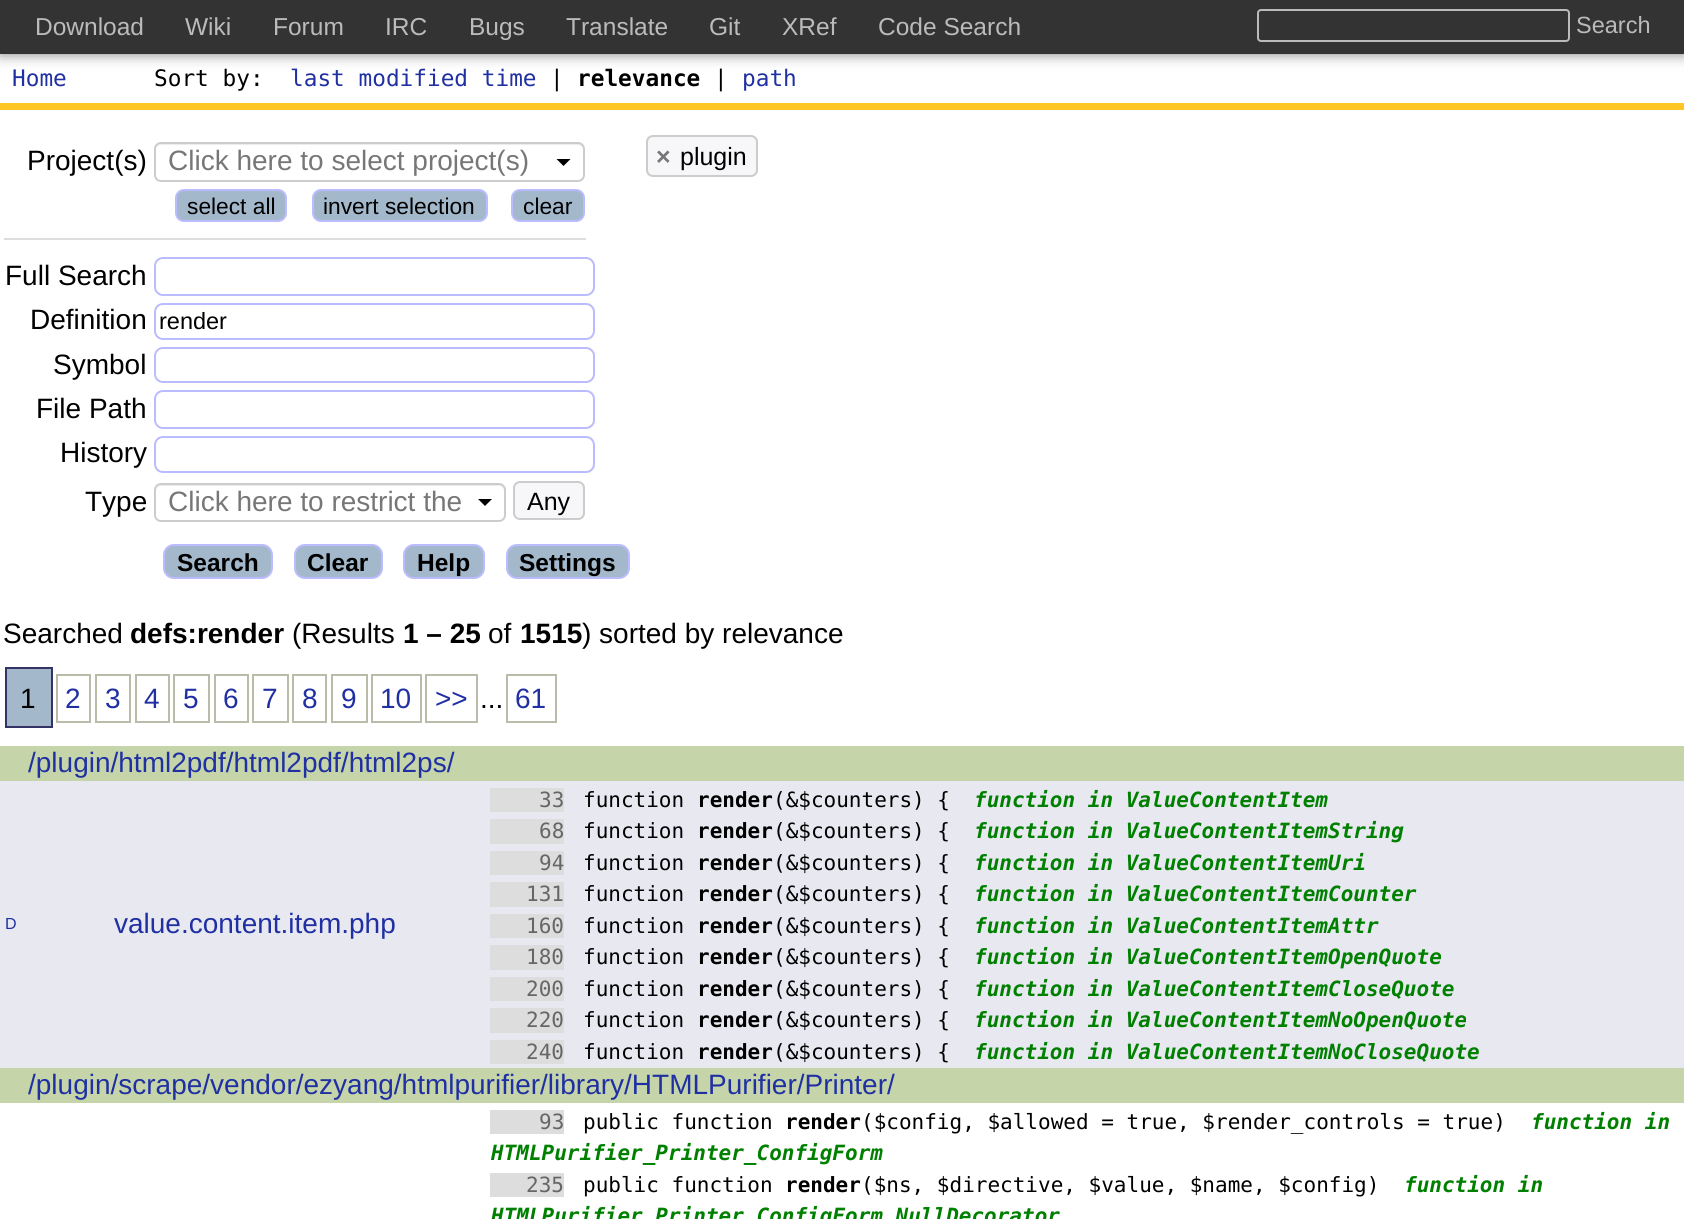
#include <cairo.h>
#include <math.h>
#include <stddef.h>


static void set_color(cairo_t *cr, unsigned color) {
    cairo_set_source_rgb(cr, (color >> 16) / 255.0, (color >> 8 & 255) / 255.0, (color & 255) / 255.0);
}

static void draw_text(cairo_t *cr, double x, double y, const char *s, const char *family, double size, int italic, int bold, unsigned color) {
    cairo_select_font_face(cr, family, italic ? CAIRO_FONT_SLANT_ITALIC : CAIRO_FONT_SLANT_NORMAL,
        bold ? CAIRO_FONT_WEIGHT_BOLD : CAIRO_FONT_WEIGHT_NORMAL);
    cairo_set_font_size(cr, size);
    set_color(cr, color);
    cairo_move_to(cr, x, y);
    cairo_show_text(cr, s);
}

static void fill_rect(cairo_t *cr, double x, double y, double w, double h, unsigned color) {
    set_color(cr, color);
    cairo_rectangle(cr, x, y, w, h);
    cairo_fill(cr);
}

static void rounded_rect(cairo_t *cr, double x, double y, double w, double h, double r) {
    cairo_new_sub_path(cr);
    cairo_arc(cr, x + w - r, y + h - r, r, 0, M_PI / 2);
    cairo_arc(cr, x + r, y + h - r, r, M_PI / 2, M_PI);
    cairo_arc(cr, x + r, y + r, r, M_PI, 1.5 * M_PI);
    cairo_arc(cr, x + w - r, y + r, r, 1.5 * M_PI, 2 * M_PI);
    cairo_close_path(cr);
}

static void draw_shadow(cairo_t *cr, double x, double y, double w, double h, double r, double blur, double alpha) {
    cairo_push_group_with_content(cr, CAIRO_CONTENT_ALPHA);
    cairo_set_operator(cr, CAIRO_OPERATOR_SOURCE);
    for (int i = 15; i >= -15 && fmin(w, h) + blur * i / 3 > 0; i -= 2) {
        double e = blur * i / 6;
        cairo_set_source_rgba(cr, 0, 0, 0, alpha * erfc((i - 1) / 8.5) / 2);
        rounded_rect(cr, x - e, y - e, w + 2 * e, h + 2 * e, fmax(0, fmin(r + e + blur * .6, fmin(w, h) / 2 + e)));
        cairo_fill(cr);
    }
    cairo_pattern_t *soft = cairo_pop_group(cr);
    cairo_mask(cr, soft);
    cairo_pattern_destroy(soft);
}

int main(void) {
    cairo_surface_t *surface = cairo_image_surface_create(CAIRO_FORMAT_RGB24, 1684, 1219);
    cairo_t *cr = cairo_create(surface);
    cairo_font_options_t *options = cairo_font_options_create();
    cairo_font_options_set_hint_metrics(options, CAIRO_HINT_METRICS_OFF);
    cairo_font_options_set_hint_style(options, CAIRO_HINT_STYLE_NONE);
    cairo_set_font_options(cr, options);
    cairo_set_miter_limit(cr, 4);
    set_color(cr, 0xFFFFFF);
    cairo_paint(cr);
    set_color(cr, 0x000000);
    draw_shadow(cr, 0, 0, 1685, 54, 0, 7, 0.5);
    fill_rect(cr, 0, 0, 1684, 54, 0x333333);
    draw_text(cr, 35, 35, "Download", "Liberation Sans", 24.5, 0, 0, 0xBBBBBB);
    draw_text(cr, 185, 35, "Wiki", "Liberation Sans", 24.5, 0, 0, 0xBBBBBB);
    draw_text(cr, 273, 35, "Forum", "Liberation Sans", 24.5, 0, 0, 0xBBBBBB);
    draw_text(cr, 385, 35, "IRC", "Liberation Sans", 24.5, 0, 0, 0xBBBBBB);
    draw_text(cr, 469, 35, "Bugs", "Liberation Sans", 24.5, 0, 0, 0xBBBBBB);
    draw_text(cr, 566, 35, "Translate", "Liberation Sans", 24.5, 0, 0, 0xBBBBBB);
    draw_text(cr, 709, 35, "Git", "Liberation Sans", 24.5, 0, 0, 0xBBBBBB);
    draw_text(cr, 782, 35, "XRef", "Liberation Sans", 24.5, 0, 0, 0xBBBBBB);
    draw_text(cr, 878, 35, "Code Search", "Liberation Sans", 24.5, 0, 0, 0xBBBBBB);
    rounded_rect(cr, 1258, 10, 311, 31, 3);
    cairo_stroke(cr);
    draw_text(cr, 1576, 33, "Search", "Liberation Sans", 23.5, 0, 0, 0xBBBBBB);
    draw_text(cr, 12, 86, "Home", "DejaVu Sans Mono", 22.75, 0, 0, 0x2030A2);
    draw_text(cr, 154, 86, "Sort by:", "DejaVu Sans Mono", 22.75, 0, 0, 0x000000);
    draw_text(cr, 290, 86, "last modified time", "DejaVu Sans Mono", 22.75, 0, 0, 0x2030A2);
    draw_text(cr, 550, 86, "|", "DejaVu Sans Mono", 22.75, 0, 0, 0x000000);
    draw_text(cr, 577, 86, "relevance", "DejaVu Sans Mono", 22.75, 0, 1, 0x000000);
    draw_text(cr, 714, 86, "|", "DejaVu Sans Mono", 22.75, 0, 0, 0x000000);
    draw_text(cr, 742, 86, "path", "DejaVu Sans Mono", 22.75, 0, 0, 0x2030A2);
    fill_rect(cr, 0, 103, 1684, 7, 0xFFC726);
    draw_text(cr, 27, 170, "Project(s)", "Liberation Sans", 28, 0, 0, 0x000000);
    set_color(cr, 0xECECEC);
    cairo_new_path(cr);
    cairo_move_to(cr, 161, 145);
    cairo_line_to(cr, 578, 145);
    cairo_curve_to(cr, 580, 145, 583, 148, 583, 150);
    cairo_curve_to(cr, 583, 147, 581, 144, 578, 144);
    cairo_line_to(cr, 161, 144);
    cairo_curve_to(cr, 158, 144, 156, 147, 156, 150);
    cairo_curve_to(cr, 156, 148, 158, 145, 161, 145);
    cairo_close_path(cr);
    cairo_fill(cr);
    rounded_rect(cr, 155, 143, 429, 38, 6);
    set_color(cr, 0xCCCCCC);
    cairo_stroke(cr);
    draw_text(cr, 168, 170, "Click here to select project(s)", "Liberation Sans", 28, 0, 0, 0x777777);
    set_color(cr, 0x000000);
    cairo_new_path(cr);
    cairo_move_to(cr, 556.5, 159);
    cairo_line_to(cr, 570.5, 159);
    cairo_line_to(cr, 563.5, 166);
    cairo_close_path(cr);
    cairo_fill(cr);
    fill_rect(cr, 4, 238, 582, 2, 0xDDDDDD);
    set_color(cr, 0xA3B8CB);
    rounded_rect(cr, 176, 190, 110, 31, 8);
    cairo_fill_preserve(cr);
    set_color(cr, 0xBBBBFF);
    cairo_stroke(cr);
    draw_text(cr, 187, 214, "select all", "Liberation Sans", 22.75, 0, 0, 0x000000);
    set_color(cr, 0xA3B8CB);
    rounded_rect(cr, 313, 190, 174, 31, 8);
    cairo_fill_preserve(cr);
    set_color(cr, 0xBBBBFF);
    cairo_stroke(cr);
    draw_text(cr, 323, 214, "invert selection", "Liberation Sans", 22.75, 0, 0, 0x000000);
    set_color(cr, 0xA3B8CB);
    rounded_rect(cr, 512, 190, 72, 31, 8);
    cairo_fill_preserve(cr);
    set_color(cr, 0xBBBBFF);
    cairo_stroke(cr);
    draw_text(cr, 523, 214, "clear", "Liberation Sans", 22.75, 0, 0, 0x000000);
    draw_text(cr, 5, 285, "Full Search", "Liberation Sans", 28, 0, 0, 0x000000);
    rounded_rect(cr, 155, 258, 439, 37, 8);
    set_color(cr, 0xBBBBFF);
    cairo_stroke(cr);
    draw_text(cr, 30, 329, "Definition", "Liberation Sans", 28, 0, 0, 0x000000);
    rounded_rect(cr, 155, 304, 439, 35, 8);
    set_color(cr, 0xBBBBFF);
    cairo_stroke(cr);
    draw_text(cr, 159, 329, "render", "Liberation Sans", 23.5, 0, 0, 0x000000);
    draw_text(cr, 53, 374, "Symbol", "Liberation Sans", 28, 0, 0, 0x000000);
    rounded_rect(cr, 155, 348, 439, 34, 8);
    set_color(cr, 0xBBBBFF);
    cairo_stroke(cr);
    draw_text(cr, 36, 418, "File Path", "Liberation Sans", 28, 0, 0, 0x000000);
    rounded_rect(cr, 155, 391, 439, 37, 8);
    set_color(cr, 0xBBBBFF);
    cairo_stroke(cr);
    draw_text(cr, 60, 462, "History", "Liberation Sans", 28, 0, 0, 0x000000);
    rounded_rect(cr, 155, 437, 439, 35, 8);
    set_color(cr, 0xBBBBFF);
    cairo_stroke(cr);
    draw_text(cr, 85, 511, "Type", "Liberation Sans", 28, 0, 0, 0x000000);
    set_color(cr, 0xECECEC);
    cairo_new_path(cr);
    cairo_move_to(cr, 161, 486);
    cairo_line_to(cr, 499, 486);
    cairo_curve_to(cr, 502, 486, 504, 489, 504, 492);
    cairo_curve_to(cr, 504, 489, 503, 485, 499, 485);
    cairo_line_to(cr, 161, 485);
    cairo_curve_to(cr, 157, 485, 156, 489, 156, 492);
    cairo_curve_to(cr, 156, 489, 158, 486, 161, 486);
    cairo_close_path(cr);
    cairo_fill(cr);
    rounded_rect(cr, 155, 484, 350, 37, 6);
    set_color(cr, 0xCCCCCC);
    cairo_stroke(cr);
    draw_text(cr, 168, 511, "Click here to restrict the", "Liberation Sans", 28, 0, 0, 0x777777);
    set_color(cr, 0x000000);
    cairo_new_path(cr);
    cairo_move_to(cr, 478, 499);
    cairo_line_to(cr, 492, 499);
    cairo_line_to(cr, 485, 506);
    cairo_close_path(cr);
    cairo_fill(cr);
    set_color(cr, 0xF7F7F9);
    rounded_rect(cr, 514, 482, 70, 37, 6);
    cairo_fill_preserve(cr);
    set_color(cr, 0xCCCCCC);
    cairo_stroke(cr);
    draw_text(cr, 527, 510, "Any", "Liberation Sans", 25, 0, 0, 0x000000);
    set_color(cr, 0xA3B8CB);
    rounded_rect(cr, 164, 545, 108, 33, 10);
    cairo_fill_preserve(cr);
    set_color(cr, 0xBBBBFF);
    cairo_stroke(cr);
    draw_text(cr, 177, 571, "Search", "Liberation Sans", 24.5, 0, 1, 0x000000);
    set_color(cr, 0xA3B8CB);
    rounded_rect(cr, 295, 545, 87, 33, 10);
    cairo_fill_preserve(cr);
    set_color(cr, 0xBBBBFF);
    cairo_stroke(cr);
    draw_text(cr, 307, 571, "Clear", "Liberation Sans", 24.5, 0, 1, 0x000000);
    set_color(cr, 0xA3B8CB);
    rounded_rect(cr, 404, 545, 80, 33, 10);
    cairo_fill_preserve(cr);
    set_color(cr, 0xBBBBFF);
    cairo_stroke(cr);
    draw_text(cr, 417, 571, "Help", "Liberation Sans", 24.5, 0, 1, 0x000000);
    set_color(cr, 0xA3B8CB);
    rounded_rect(cr, 507, 545, 122, 33, 10);
    cairo_fill_preserve(cr);
    set_color(cr, 0xBBBBFF);
    cairo_stroke(cr);
    draw_text(cr, 519, 571, "Settings", "Liberation Sans", 24.5, 0, 1, 0x000000);
    set_color(cr, 0xF7F7F9);
    rounded_rect(cr, 647, 136, 110, 40, 6);
    cairo_fill_preserve(cr);
    set_color(cr, 0xCCCCCC);
    cairo_stroke(cr);
    draw_text(cr, 656, 165, "×", "Liberation Sans", 25, 0, 1, 0x777777);
    draw_text(cr, 680, 165, "plugin", "Liberation Sans", 25, 0, 0, 0x000000);
    draw_text(cr, 3, 643, "Searched", "Liberation Sans", 28, 0, 0, 0x000000);
    draw_text(cr, 130, 643, "defs:render", "Liberation Sans", 28, 0, 1, 0x000000);
    draw_text(cr, 292, 643, "(Results", "Liberation Sans", 28, 0, 0, 0x000000);
    draw_text(cr, 403, 643, "1 – 25", "Liberation Sans", 28, 0, 1, 0x000000);
    draw_text(cr, 488, 643, "of", "Liberation Sans", 28, 0, 0, 0x000000);
    draw_text(cr, 520, 643, "1515", "Liberation Sans", 28, 0, 1, 0x000000);
    draw_text(cr, 582, 643, ") sorted by relevance", "Liberation Sans", 28, 0, 0, 0x000000);
    set_color(cr, 0xA3B8CB);
    cairo_rectangle(cr, 6, 668, 46, 59);
    cairo_fill_preserve(cr);
    set_color(cr, 0x333366);
    cairo_stroke(cr);
    draw_text(cr, 20, 708, "1", "Liberation Sans", 28, 0, 0, 0x000000);
    cairo_rectangle(cr, 57, 675, 33, 47);
    set_color(cr, 0xBBBBAA);
    cairo_stroke(cr);
    draw_text(cr, 65, 708, "2", "Liberation Sans", 28, 0, 0, 0x2030A2);
    cairo_rectangle(cr, 96, 675, 34, 47);
    set_color(cr, 0xBBBBAA);
    cairo_stroke(cr);
    draw_text(cr, 105, 708, "3", "Liberation Sans", 28, 0, 0, 0x2030A2);
    cairo_rectangle(cr, 136, 675, 33, 47);
    set_color(cr, 0xBBBBAA);
    cairo_stroke(cr);
    draw_text(cr, 144, 708, "4", "Liberation Sans", 28, 0, 0, 0x2030A2);
    cairo_rectangle(cr, 174, 675, 35, 47);
    set_color(cr, 0xBBBBAA);
    cairo_stroke(cr);
    draw_text(cr, 183, 708, "5", "Liberation Sans", 28, 0, 0, 0x2030A2);
    cairo_rectangle(cr, 215, 675, 33, 47);
    set_color(cr, 0xBBBBAA);
    cairo_stroke(cr);
    draw_text(cr, 223, 708, "6", "Liberation Sans", 28, 0, 0, 0x2030A2);
    cairo_rectangle(cr, 253, 675, 35, 47);
    set_color(cr, 0xBBBBAA);
    cairo_stroke(cr);
    draw_text(cr, 262, 708, "7", "Liberation Sans", 28, 0, 0, 0x2030A2);
    cairo_rectangle(cr, 293, 675, 33, 47);
    set_color(cr, 0xBBBBAA);
    cairo_stroke(cr);
    draw_text(cr, 302, 708, "8", "Liberation Sans", 28, 0, 0, 0x2030A2);
    cairo_rectangle(cr, 332, 675, 35, 47);
    set_color(cr, 0xBBBBAA);
    cairo_stroke(cr);
    draw_text(cr, 341, 708, "9", "Liberation Sans", 28, 0, 0, 0x2030A2);
    cairo_rectangle(cr, 372, 675, 49, 47);
    set_color(cr, 0xBBBBAA);
    cairo_stroke(cr);
    draw_text(cr, 380, 708, "10", "Liberation Sans", 28, 0, 0, 0x2030A2);
    cairo_rectangle(cr, 426, 675, 51, 47);
    set_color(cr, 0xBBBBAA);
    cairo_stroke(cr);
    draw_text(cr, 435, 708, ">>", "Liberation Sans", 28, 0, 0, 0x2030A2);
    cairo_rectangle(cr, 507, 675, 49, 47);
    set_color(cr, 0xBBBBAA);
    cairo_stroke(cr);
    draw_text(cr, 515, 708, "61", "Liberation Sans", 28, 0, 0, 0x2030A2);
    draw_text(cr, 480, 708, "...", "Liberation Sans", 28, 0, 0, 0x000000);
    fill_rect(cr, 0, 746, 1684, 35, 0xC5D5A9);
    draw_text(cr, 28, 772, "/plugin/html2pdf/html2pdf/html2ps/", "Liberation Sans", 28, 0, 0, 0x2030A2);
    fill_rect(cr, 0, 781, 1684, 287, 0xE8E8F0);
    draw_text(cr, 5, 929, "D", "Liberation Sans", 16, 0, 0, 0x2030A2);
    draw_text(cr, 114, 933, "value.content.item.php", "Liberation Sans", 28, 0, 0, 0x2030A2);
    fill_rect(cr, 490, 788, 74, 24, 0xDDDDDD);
    draw_text(cr, 539, 807, "33", "DejaVu Sans Mono", 21, 0, 0, 0x666666);
    draw_text(cr, 583, 807, "function", "DejaVu Sans Mono", 21, 0, 0, 0x000000);
    draw_text(cr, 697, 807, "render", "DejaVu Sans Mono", 21, 0, 1, 0x000000);
    draw_text(cr, 773, 807, "(&$counters) {", "DejaVu Sans Mono", 21, 0, 0, 0x000000);
    draw_text(cr, 974, 807, "function in ValueContentItem", "DejaVu Sans Mono", 21, 1, 1, 0x008000);
    fill_rect(cr, 490, 819, 74, 25, 0xDDDDDD);
    draw_text(cr, 539, 838, "68", "DejaVu Sans Mono", 21, 0, 0, 0x666666);
    draw_text(cr, 583, 838, "function", "DejaVu Sans Mono", 21, 0, 0, 0x000000);
    draw_text(cr, 697, 838, "render", "DejaVu Sans Mono", 21, 0, 1, 0x000000);
    draw_text(cr, 773, 838, "(&$counters) {", "DejaVu Sans Mono", 21, 0, 0, 0x000000);
    draw_text(cr, 974, 838, "function in ValueContentItemString", "DejaVu Sans Mono", 21, 1, 1, 0x008000);
    fill_rect(cr, 490, 851, 74, 24, 0xDDDDDD);
    draw_text(cr, 539, 870, "94", "DejaVu Sans Mono", 21, 0, 0, 0x666666);
    draw_text(cr, 583, 870, "function", "DejaVu Sans Mono", 21, 0, 0, 0x000000);
    draw_text(cr, 697, 870, "render", "DejaVu Sans Mono", 21, 0, 1, 0x000000);
    draw_text(cr, 773, 870, "(&$counters) {", "DejaVu Sans Mono", 21, 0, 0, 0x000000);
    draw_text(cr, 974, 870, "function in ValueContentItemUri", "DejaVu Sans Mono", 21, 1, 1, 0x008000);
    fill_rect(cr, 490, 882, 74, 25, 0xDDDDDD);
    draw_text(cr, 526, 901, "131", "DejaVu Sans Mono", 21, 0, 0, 0x666666);
    draw_text(cr, 583, 901, "function", "DejaVu Sans Mono", 21, 0, 0, 0x000000);
    draw_text(cr, 697, 901, "render", "DejaVu Sans Mono", 21, 0, 1, 0x000000);
    draw_text(cr, 773, 901, "(&$counters) {", "DejaVu Sans Mono", 21, 0, 0, 0x000000);
    draw_text(cr, 974, 901, "function in ValueContentItemCounter", "DejaVu Sans Mono", 21, 1, 1, 0x008000);
    fill_rect(cr, 490, 914, 74, 24, 0xDDDDDD);
    draw_text(cr, 526, 933, "160", "DejaVu Sans Mono", 21, 0, 0, 0x666666);
    draw_text(cr, 583, 933, "function", "DejaVu Sans Mono", 21, 0, 0, 0x000000);
    draw_text(cr, 697, 933, "render", "DejaVu Sans Mono", 21, 0, 1, 0x000000);
    draw_text(cr, 773, 933, "(&$counters) {", "DejaVu Sans Mono", 21, 0, 0, 0x000000);
    draw_text(cr, 974, 933, "function in ValueContentItemAttr", "DejaVu Sans Mono", 21, 1, 1, 0x008000);
    fill_rect(cr, 490, 945, 74, 25, 0xDDDDDD);
    draw_text(cr, 526, 964, "180", "DejaVu Sans Mono", 21, 0, 0, 0x666666);
    draw_text(cr, 583, 964, "function", "DejaVu Sans Mono", 21, 0, 0, 0x000000);
    draw_text(cr, 697, 964, "render", "DejaVu Sans Mono", 21, 0, 1, 0x000000);
    draw_text(cr, 773, 964, "(&$counters) {", "DejaVu Sans Mono", 21, 0, 0, 0x000000);
    draw_text(cr, 974, 964, "function in ValueContentItemOpenQuote", "DejaVu Sans Mono", 21, 1, 1, 0x008000);
    fill_rect(cr, 490, 977, 74, 24, 0xDDDDDD);
    draw_text(cr, 526, 996, "200", "DejaVu Sans Mono", 21, 0, 0, 0x666666);
    draw_text(cr, 583, 996, "function", "DejaVu Sans Mono", 21, 0, 0, 0x000000);
    draw_text(cr, 697, 996, "render", "DejaVu Sans Mono", 21, 0, 1, 0x000000);
    draw_text(cr, 773, 996, "(&$counters) {", "DejaVu Sans Mono", 21, 0, 0, 0x000000);
    draw_text(cr, 974, 996, "function in ValueContentItemCloseQuote", "DejaVu Sans Mono", 21, 1, 1, 0x008000);
    fill_rect(cr, 490, 1008, 74, 25, 0xDDDDDD);
    draw_text(cr, 526, 1027, "220", "DejaVu Sans Mono", 21, 0, 0, 0x666666);
    draw_text(cr, 583, 1027, "function", "DejaVu Sans Mono", 21, 0, 0, 0x000000);
    draw_text(cr, 697, 1027, "render", "DejaVu Sans Mono", 21, 0, 1, 0x000000);
    draw_text(cr, 773, 1027, "(&$counters) {", "DejaVu Sans Mono", 21, 0, 0, 0x000000);
    draw_text(cr, 974, 1027, "function in ValueContentItemNoOpenQuote", "DejaVu Sans Mono", 21, 1, 1, 0x008000);
    fill_rect(cr, 490, 1040, 74, 24, 0xDDDDDD);
    draw_text(cr, 526, 1059, "240", "DejaVu Sans Mono", 21, 0, 0, 0x666666);
    draw_text(cr, 583, 1059, "function", "DejaVu Sans Mono", 21, 0, 0, 0x000000);
    draw_text(cr, 697, 1059, "render", "DejaVu Sans Mono", 21, 0, 1, 0x000000);
    draw_text(cr, 773, 1059, "(&$counters) {", "DejaVu Sans Mono", 21, 0, 0, 0x000000);
    draw_text(cr, 974, 1059, "function in ValueContentItemNoCloseQuote", "DejaVu Sans Mono", 21, 1, 1, 0x008000);
    fill_rect(cr, 0, 1068, 1684, 35, 0xC5D5A9);
    draw_text(cr, 28, 1094, "/plugin/scrape/vendor/ezyang/htmlpurifier/library/HTMLPurifier/Printer/", "Liberation Sans", 28, 0, 0, 0x2030A2);
    fill_rect(cr, 490, 1110, 74, 24, 0xDDDDDD);
    draw_text(cr, 539, 1129, "93", "DejaVu Sans Mono", 21, 0, 0, 0x666666);
    draw_text(cr, 583, 1129, "public function", "DejaVu Sans Mono", 21, 0, 0, 0x000000);
    draw_text(cr, 785, 1129, "render", "DejaVu Sans Mono", 21, 0, 1, 0x000000);
    draw_text(cr, 861, 1129, "($config, $allowed = true, $render_controls = true)", "DejaVu Sans Mono", 21, 0, 0, 0x000000);
    draw_text(cr, 1531, 1129, "function in", "DejaVu Sans Mono", 21, 1, 1, 0x008000);
    draw_text(cr, 491, 1160, "HTMLPurifier_Printer_ConfigForm", "DejaVu Sans Mono", 21, 1, 1, 0x008000);
    fill_rect(cr, 490, 1173, 74, 24, 0xDDDDDD);
    draw_text(cr, 526, 1192, "235", "DejaVu Sans Mono", 21, 0, 0, 0x666666);
    draw_text(cr, 583, 1192, "public function", "DejaVu Sans Mono", 21, 0, 0, 0x000000);
    draw_text(cr, 785, 1192, "render", "DejaVu Sans Mono", 21, 0, 1, 0x000000);
    draw_text(cr, 861, 1192, "($ns, $directive, $value, $name, $config)", "DejaVu Sans Mono", 21, 0, 0, 0x000000);
    draw_text(cr, 1404, 1192, "function in", "DejaVu Sans Mono", 21, 1, 1, 0x008000);
    draw_text(cr, 491, 1223, "HTMLPurifier_Printer_ConfigForm_NullDecorator", "DejaVu Sans Mono", 21, 1, 1, 0x008000);
    cairo_surface_write_to_png(surface, "output.png");
    cairo_font_options_destroy(options);
    cairo_destroy(cr);
    cairo_surface_destroy(surface);
    return 0;
}
